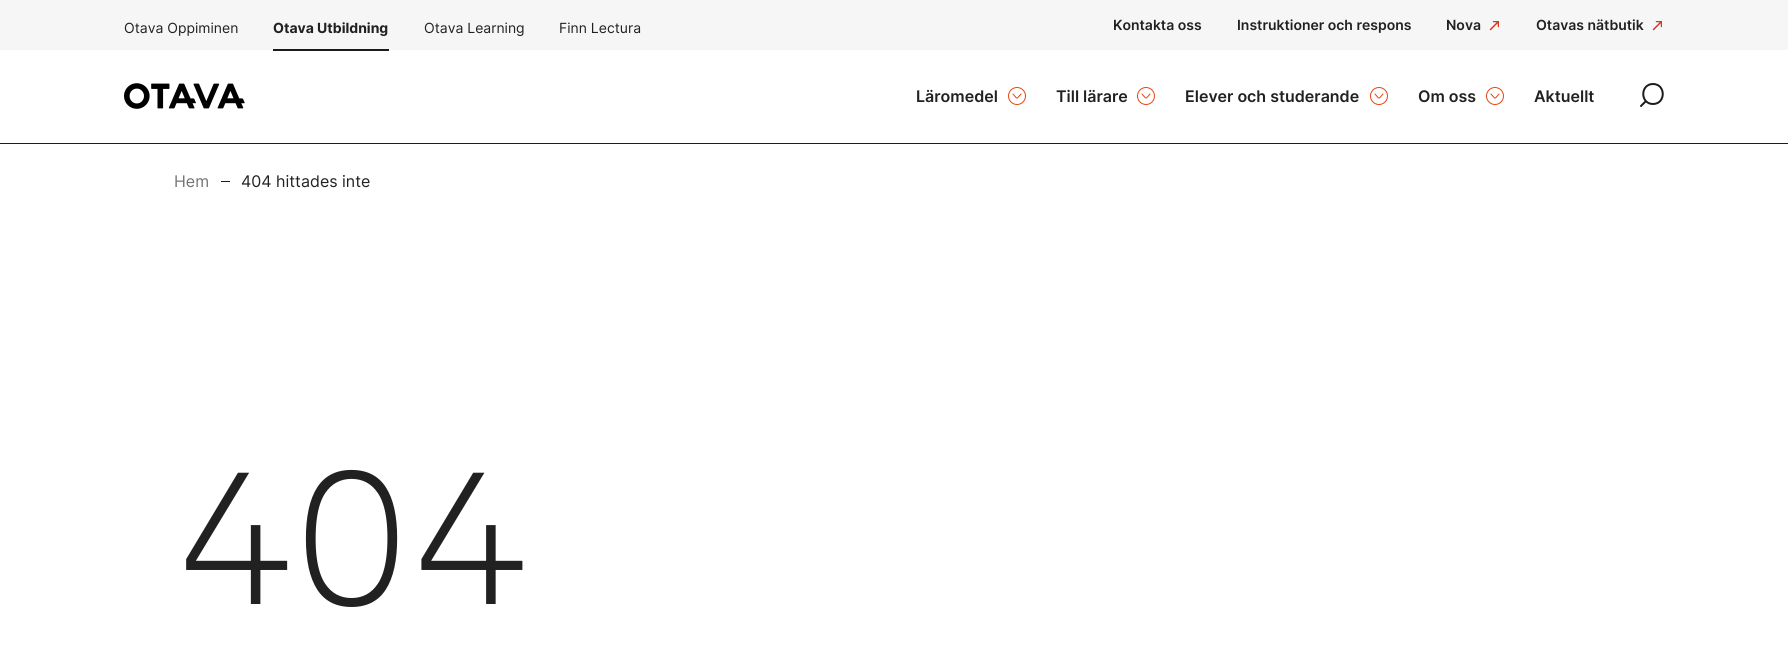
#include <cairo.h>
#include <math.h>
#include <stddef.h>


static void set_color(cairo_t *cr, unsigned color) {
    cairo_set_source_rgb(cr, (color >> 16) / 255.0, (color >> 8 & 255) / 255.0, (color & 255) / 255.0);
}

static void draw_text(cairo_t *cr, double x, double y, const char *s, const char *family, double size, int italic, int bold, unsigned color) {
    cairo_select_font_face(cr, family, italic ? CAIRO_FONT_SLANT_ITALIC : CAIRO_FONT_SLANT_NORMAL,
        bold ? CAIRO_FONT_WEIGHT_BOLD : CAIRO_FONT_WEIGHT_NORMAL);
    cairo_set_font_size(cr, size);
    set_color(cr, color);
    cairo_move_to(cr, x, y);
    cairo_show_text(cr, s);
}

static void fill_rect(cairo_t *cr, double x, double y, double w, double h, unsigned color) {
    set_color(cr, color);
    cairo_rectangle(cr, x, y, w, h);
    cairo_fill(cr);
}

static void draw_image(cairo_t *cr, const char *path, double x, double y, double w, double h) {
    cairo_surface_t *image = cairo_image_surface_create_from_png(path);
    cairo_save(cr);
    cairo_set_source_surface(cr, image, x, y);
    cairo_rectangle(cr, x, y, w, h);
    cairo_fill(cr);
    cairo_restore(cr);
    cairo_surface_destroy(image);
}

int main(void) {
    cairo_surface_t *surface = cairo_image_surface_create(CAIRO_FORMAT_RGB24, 1788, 670);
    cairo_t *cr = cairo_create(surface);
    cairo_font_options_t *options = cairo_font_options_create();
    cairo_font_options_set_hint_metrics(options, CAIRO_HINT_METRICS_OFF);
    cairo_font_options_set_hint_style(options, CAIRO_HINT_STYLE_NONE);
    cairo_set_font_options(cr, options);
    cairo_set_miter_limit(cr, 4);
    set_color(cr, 0xFFFFFF);
    cairo_paint(cr);
    fill_rect(cr, 0, 143, 1788, 1, 0x1C1C1C);
    fill_rect(cr, 0, 0, 1788, 50, 0xF6F6F6);
    draw_text(cr, 124, 33, "Otava Oppiminen", "Inter", 14, 0, 0, 0x212121);
    draw_text(cr, 273, 33, "Otava Utbildning", "Inter", 14, 0, 1, 0x212121);
    fill_rect(cr, 273, 49, 116, 2, 0x1C1C1C);
    draw_text(cr, 424, 33, "Otava Learning", "Inter", 14, 0, 0, 0x212121);
    draw_text(cr, 559, 33, "Finn Lectura", "Inter", 14, 0, 0, 0x212121);
    draw_text(cr, 1113, 30, "Kontakta oss", "Inter SemiBold", 14, 0, 0, 0x212121);
    draw_text(cr, 1237, 30, "Instruktioner och respons", "Inter SemiBold", 14, 0, 0, 0x212121);
    draw_text(cr, 1446, 30, "Nova", "Inter SemiBold", 14, 0, 0, 0x212121);
    cairo_save(cr);
    cairo_new_path(cr);
    cairo_move_to(cr, 1489, 21);
    cairo_line_to(cr, 1499, 21);
    cairo_line_to(cr, 1499, 31);
    cairo_line_to(cr, 1489, 31);
    cairo_close_path(cr);
    cairo_clip(cr);
    cairo_new_path(cr);
    cairo_move_to(cr, 1493.5, 21.5);
    cairo_line_to(cr, 1498.5, 21.5);
    cairo_line_to(cr, 1498.5, 26.5);
    cairo_move_to(cr, 1498.5, 21.5);
    cairo_line_to(cr, 1490.5, 29.5);
    set_color(cr, 0xD83822);
    cairo_set_line_width(cr, 1.5);
    cairo_set_line_cap(cr, CAIRO_LINE_CAP_ROUND);
    cairo_set_line_join(cr, CAIRO_LINE_JOIN_ROUND);
    cairo_stroke(cr);
    cairo_restore(cr);
    draw_text(cr, 1536, 30, "Otavas nätbutik", "Inter SemiBold", 14, 0, 0, 0x212121);
    cairo_save(cr);
    cairo_new_path(cr);
    cairo_move_to(cr, 1652, 21);
    cairo_line_to(cr, 1662, 21);
    cairo_line_to(cr, 1662, 31);
    cairo_line_to(cr, 1652, 31);
    cairo_close_path(cr);
    cairo_clip(cr);
    cairo_new_path(cr);
    cairo_move_to(cr, 1656.5, 21.5);
    cairo_line_to(cr, 1661.5, 21.5);
    cairo_line_to(cr, 1661.5, 26.5);
    cairo_move_to(cr, 1661.5, 21.5);
    cairo_line_to(cr, 1653.5, 29.5);
    set_color(cr, 0xD83822);
    cairo_set_line_width(cr, 1.5);
    cairo_set_line_cap(cr, CAIRO_LINE_CAP_ROUND);
    cairo_set_line_join(cr, CAIRO_LINE_JOIN_ROUND);
    cairo_stroke(cr);
    cairo_restore(cr);
    draw_image(cr, "assets/img1.png", 124, 83, 121, 26);
    draw_text(cr, 916, 102, "Läromedel", "Inter SemiBold", 16, 0, 0, 0x212121);
    cairo_new_path(cr);
    cairo_arc(cr, 1017, 96, 8.5, 0, 2 * M_PI);
    set_color(cr, 0xE7450F);
    cairo_set_line_width(cr, 1);
    cairo_stroke(cr);
    cairo_new_path(cr);
    cairo_move_to(cr, 1013, 94);
    cairo_curve_to(cr, 1018, 99.5, 1016, 99.5, 1021, 94);
    cairo_set_line_cap(cr, CAIRO_LINE_CAP_ROUND);
    cairo_set_line_join(cr, CAIRO_LINE_JOIN_ROUND);
    cairo_stroke(cr);
    draw_text(cr, 1056, 102, "Till lärare", "Inter SemiBold", 16, 0, 0, 0x212121);
    cairo_new_path(cr);
    cairo_arc(cr, 1146, 96, 8.5, 0, 2 * M_PI);
    set_color(cr, 0xE7450F);
    cairo_set_line_cap(cr, CAIRO_LINE_CAP_BUTT);
    cairo_set_line_join(cr, CAIRO_LINE_JOIN_MITER);
    cairo_stroke(cr);
    cairo_new_path(cr);
    cairo_move_to(cr, 1142, 94);
    cairo_curve_to(cr, 1147, 99.5, 1145, 99.5, 1150, 94);
    cairo_set_line_cap(cr, CAIRO_LINE_CAP_ROUND);
    cairo_set_line_join(cr, CAIRO_LINE_JOIN_ROUND);
    cairo_stroke(cr);
    draw_text(cr, 1185, 102, "Elever och studerande", "Inter SemiBold", 16, 0, 0, 0x212121);
    cairo_new_path(cr);
    cairo_arc(cr, 1379, 96, 8.5, 0, 2 * M_PI);
    set_color(cr, 0xE7450F);
    cairo_set_line_cap(cr, CAIRO_LINE_CAP_BUTT);
    cairo_set_line_join(cr, CAIRO_LINE_JOIN_MITER);
    cairo_stroke(cr);
    cairo_new_path(cr);
    cairo_move_to(cr, 1375, 94);
    cairo_curve_to(cr, 1380, 99.5, 1378, 99.5, 1383, 94);
    cairo_set_line_cap(cr, CAIRO_LINE_CAP_ROUND);
    cairo_set_line_join(cr, CAIRO_LINE_JOIN_ROUND);
    cairo_stroke(cr);
    draw_text(cr, 1418, 102, "Om oss", "Inter SemiBold", 16, 0, 0, 0x212121);
    cairo_new_path(cr);
    cairo_arc(cr, 1495, 96, 8.5, 0, 2 * M_PI);
    set_color(cr, 0xE7450F);
    cairo_set_line_cap(cr, CAIRO_LINE_CAP_BUTT);
    cairo_set_line_join(cr, CAIRO_LINE_JOIN_MITER);
    cairo_stroke(cr);
    cairo_new_path(cr);
    cairo_move_to(cr, 1491, 94);
    cairo_curve_to(cr, 1496, 99.5, 1494, 99.5, 1499, 94);
    cairo_set_line_cap(cr, CAIRO_LINE_CAP_ROUND);
    cairo_set_line_join(cr, CAIRO_LINE_JOIN_ROUND);
    cairo_stroke(cr);
    draw_text(cr, 1534, 102, "Aktuellt", "Inter SemiBold", 16, 0, 0, 0x212121);
    cairo_new_path(cr);
    cairo_move_to(cr, 1653, 104);
    cairo_curve_to(cr, 1640, 104, 1640, 84, 1653, 84);
    cairo_curve_to(cr, 1666, 84, 1666, 104, 1653, 104);
    cairo_close_path(cr);
    cairo_move_to(cr, 1641, 106);
    cairo_line_to(cr, 1645.5, 101.5);
    set_color(cr, 0x1C1C1C);
    cairo_set_line_width(cr, 2);
    cairo_stroke(cr);
    draw_text(cr, 174, 187, "Hem", "Inter", 16, 0, 0, 0x757575);
    fill_rect(cr, 221, 181, 9, 1, 0x1C1C1C);
    draw_text(cr, 241, 187, "404 hittades inte", "Inter", 16, 0, 0, 0x212121);
    draw_text(cr, 174, 604, "404", "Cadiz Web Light", 187, 0, 0, 0x212121);
    cairo_surface_write_to_png(surface, "output.png");
    cairo_font_options_destroy(options);
    cairo_destroy(cr);
    cairo_surface_destroy(surface);
    return 0;
}
